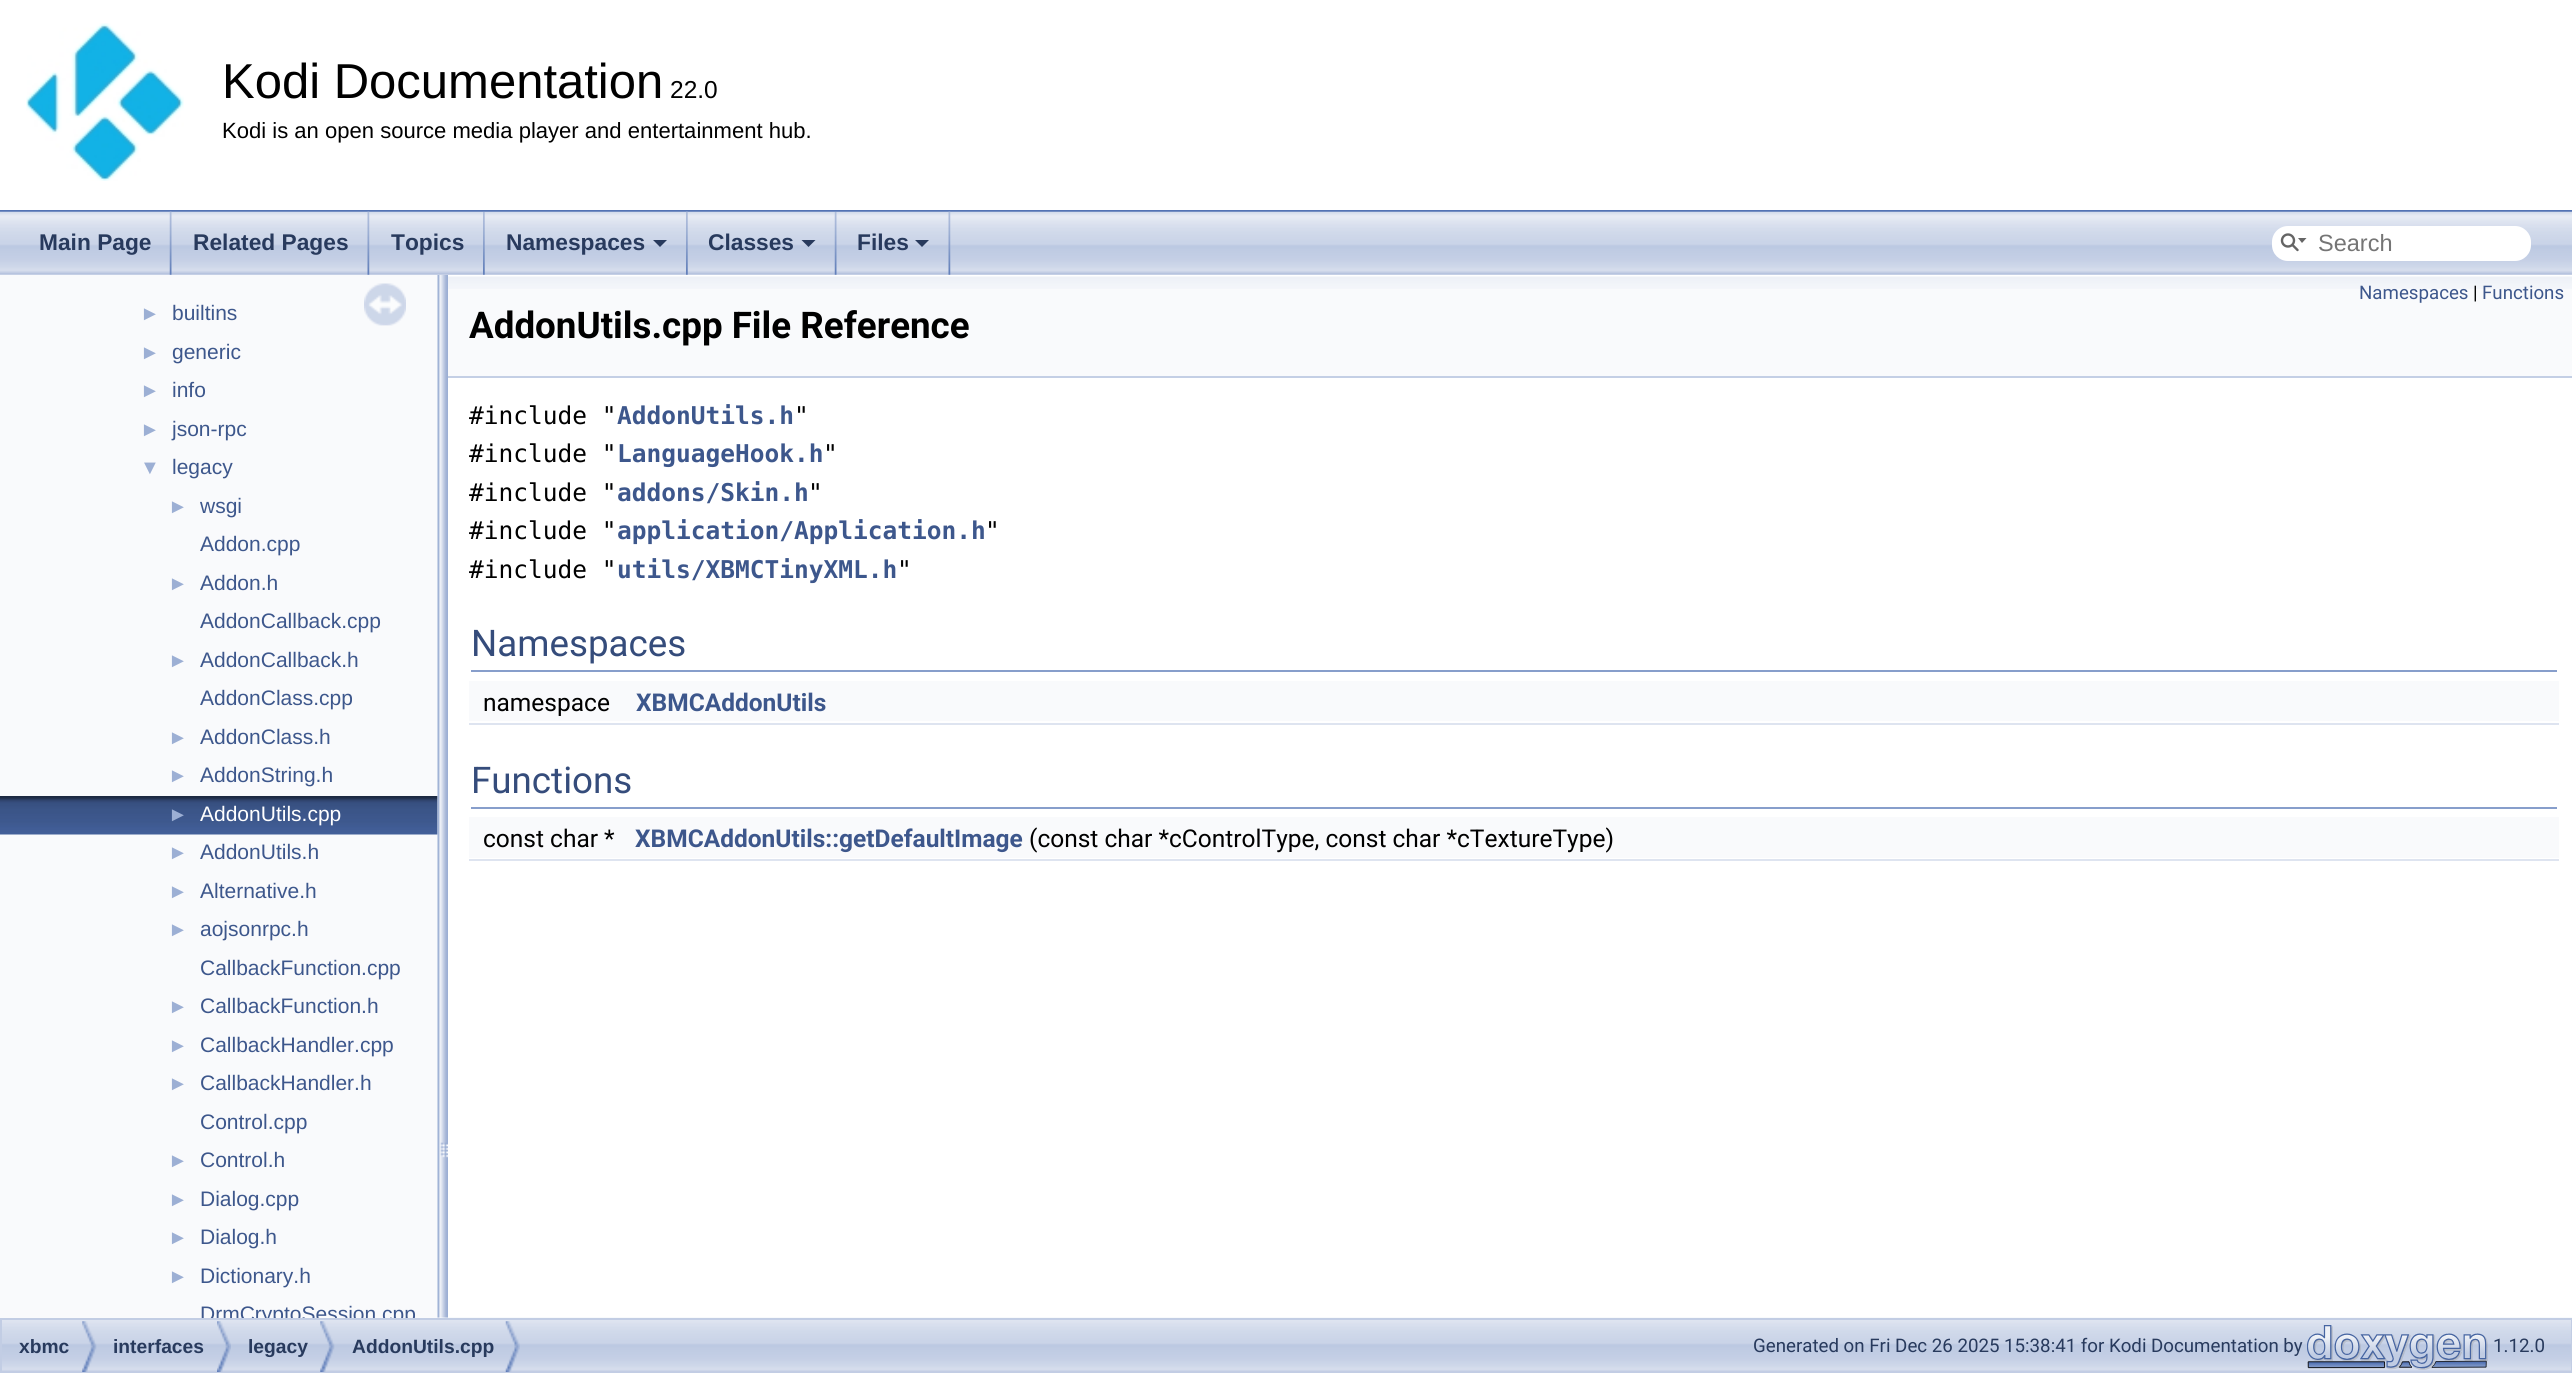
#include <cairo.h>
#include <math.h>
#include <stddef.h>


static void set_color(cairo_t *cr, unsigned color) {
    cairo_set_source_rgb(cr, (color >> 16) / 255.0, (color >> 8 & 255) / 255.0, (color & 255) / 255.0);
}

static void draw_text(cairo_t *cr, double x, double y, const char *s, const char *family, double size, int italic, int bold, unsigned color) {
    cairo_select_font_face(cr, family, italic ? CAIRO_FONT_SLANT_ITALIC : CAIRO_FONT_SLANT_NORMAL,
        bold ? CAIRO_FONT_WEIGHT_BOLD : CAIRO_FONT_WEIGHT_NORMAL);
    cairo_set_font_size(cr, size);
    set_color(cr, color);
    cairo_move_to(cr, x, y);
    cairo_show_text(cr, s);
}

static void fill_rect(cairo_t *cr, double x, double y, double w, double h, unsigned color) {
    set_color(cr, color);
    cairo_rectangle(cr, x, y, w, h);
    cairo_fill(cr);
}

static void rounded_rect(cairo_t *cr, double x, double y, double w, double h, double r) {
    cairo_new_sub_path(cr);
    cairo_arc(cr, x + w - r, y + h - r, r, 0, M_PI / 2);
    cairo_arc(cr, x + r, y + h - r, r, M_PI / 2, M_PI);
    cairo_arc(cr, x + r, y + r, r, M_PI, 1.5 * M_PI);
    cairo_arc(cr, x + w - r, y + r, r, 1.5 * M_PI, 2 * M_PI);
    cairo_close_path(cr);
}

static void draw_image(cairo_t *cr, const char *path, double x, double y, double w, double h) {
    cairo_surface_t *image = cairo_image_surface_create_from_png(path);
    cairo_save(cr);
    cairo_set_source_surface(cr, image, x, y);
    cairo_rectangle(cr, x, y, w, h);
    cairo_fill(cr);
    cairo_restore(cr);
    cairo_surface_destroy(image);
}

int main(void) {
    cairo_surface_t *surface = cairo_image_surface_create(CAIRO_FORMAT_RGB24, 2572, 1373);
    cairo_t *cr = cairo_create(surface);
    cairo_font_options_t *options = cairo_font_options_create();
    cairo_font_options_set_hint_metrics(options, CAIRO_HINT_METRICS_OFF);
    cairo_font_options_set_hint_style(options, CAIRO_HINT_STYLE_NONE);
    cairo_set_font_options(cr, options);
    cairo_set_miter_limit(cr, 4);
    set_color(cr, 0xFFFFFF);
    cairo_paint(cr);
    fill_rect(cr, 0, 210, 2572, 2, 0x5373B4);
    draw_image(cr, "assets/img1.png", 26, 23, 158, 158);
    draw_text(cr, 222, 98, "Kodi Documentation", "Liberation Sans", 49, 0, 0, 0x000000);
    draw_text(cr, 670, 98, "22.0", "Liberation Sans", 24.5, 0, 0, 0x000000);
    draw_text(cr, 222, 138, "Kodi is an open source media player and entertainment hub.", "Liberation Sans", 22.05, 0, 0, 0x000000);
    draw_image(cr, "assets/img12.png", 2, 1317, 2570, 55);
    fill_rect(cr, 0, 275, 438, 1043, 0xF9FAFC);
    draw_image(cr, "assets/img9.png", 0, 796, 438, 39);
    draw_image(cr, "assets/img10.png", 437, 274, 11, 1044);
    draw_image(cr, "assets/img2.png", 0, 211, 2572, 64);
    draw_image(cr, "assets/img3.png", 169, 211, 3, 64);
    draw_text(cr, 39, 250, "Main Page", "Liberation Sans", 22.75, 0, 1, 0x283A5D);
    draw_image(cr, "assets/img4.png", 367, 211, 3, 64);
    draw_text(cr, 193, 250, "Related Pages", "Liberation Sans", 22.75, 0, 1, 0x283A5D);
    draw_image(cr, "assets/img5.png", 483, 212, 2, 63);
    draw_text(cr, 391, 250, "Topics", "Liberation Sans", 22.75, 0, 1, 0x283A5D);
    draw_image(cr, "assets/img6.png", 686, 211, 2, 64);
    draw_text(cr, 506, 250, "Namespaces", "Liberation Sans", 22.75, 0, 1, 0x283A5D);
    cairo_new_path(cr);
    cairo_move_to(cr, 653, 240);
    cairo_line_to(cr, 667, 240);
    cairo_line_to(cr, 660, 247);
    cairo_close_path(cr);
    cairo_fill(cr);
    draw_image(cr, "assets/img7.png", 834, 212, 3, 63);
    draw_text(cr, 708, 250, "Classes", "Liberation Sans", 22.75, 0, 1, 0x283A5D);
    cairo_new_path(cr);
    cairo_move_to(cr, 801.5, 240);
    cairo_line_to(cr, 815.5, 240);
    cairo_line_to(cr, 808.5, 247);
    cairo_close_path(cr);
    cairo_fill(cr);
    draw_image(cr, "assets/img4.png", 948, 211, 3, 64);
    draw_text(cr, 857, 250, "Files", "Liberation Sans", 22.75, 0, 1, 0x283A5D);
    cairo_new_path(cr);
    cairo_move_to(cr, 915, 240);
    cairo_line_to(cr, 929, 240);
    cairo_line_to(cr, 922, 247);
    cairo_close_path(cr);
    cairo_fill(cr);
    set_color(cr, 0xFFFFFF);
    rounded_rect(cr, 2272, 226, 259, 35, 16);
    cairo_fill(cr);
    cairo_arc(cr, 2288, 240.5, 6, 0, 2 * M_PI);
    set_color(cr, 0x656565);
    cairo_set_line_width(cr, 2.4);
    cairo_stroke(cr);
    cairo_new_path(cr);
    cairo_move_to(cr, 2298, 238);
    cairo_line_to(cr, 2302, 243);
    cairo_line_to(cr, 2306.5, 238);
    cairo_close_path(cr);
    cairo_fill(cr);
    cairo_new_path(cr);
    cairo_move_to(cr, 2292.5, 245);
    cairo_line_to(cr, 2297.5, 250);
    cairo_set_line_cap(cr, CAIRO_LINE_CAP_ROUND);
    cairo_stroke(cr);
    draw_text(cr, 2318, 251, "Search", "Liberation Sans", 23.5, 0, 0, 0x757575);
    draw_image(cr, "assets/img8.png", 364, 283, 42, 43);
    draw_text(cr, 140, 320, "►", "Liberation Sans", 20, 0, 0, 0x9CAFD4);
    draw_text(cr, 172, 320, "builtins", "Liberation Sans", 21, 0, 0, 0x3D578C);
    draw_text(cr, 140, 359, "►", "Liberation Sans", 20, 0, 0, 0x9CAFD4);
    draw_text(cr, 172, 359, "generic", "Liberation Sans", 21, 0, 0, 0x3D578C);
    draw_text(cr, 140, 397, "►", "Liberation Sans", 20, 0, 0, 0x9CAFD4);
    draw_text(cr, 172, 397, "info", "Liberation Sans", 21, 0, 0, 0x3D578C);
    draw_text(cr, 140, 436, "►", "Liberation Sans", 20, 0, 0, 0x9CAFD4);
    draw_text(cr, 172, 436, "json-rpc", "Liberation Sans", 21, 0, 0, 0x3D578C);
    draw_text(cr, 140, 474, "▼", "Liberation Sans", 20, 0, 0, 0x9CAFD4);
    draw_text(cr, 172, 474, "legacy", "Liberation Sans", 21, 0, 0, 0x3D578C);
    draw_text(cr, 168, 513, "►", "Liberation Sans", 20, 0, 0, 0x9CAFD4);
    draw_text(cr, 200, 513, "wsgi", "Liberation Sans", 21, 0, 0, 0x3D578C);
    draw_text(cr, 200, 551, "Addon.cpp", "Liberation Sans", 21, 0, 0, 0x3D578C);
    draw_text(cr, 168, 590, "►", "Liberation Sans", 20, 0, 0, 0x9CAFD4);
    draw_text(cr, 200, 590, "Addon.h", "Liberation Sans", 21, 0, 0, 0x3D578C);
    draw_text(cr, 200, 628, "AddonCallback.cpp", "Liberation Sans", 21, 0, 0, 0x3D578C);
    draw_text(cr, 168, 667, "►", "Liberation Sans", 20, 0, 0, 0x9CAFD4);
    draw_text(cr, 200, 667, "AddonCallback.h", "Liberation Sans", 21, 0, 0, 0x3D578C);
    draw_text(cr, 200, 705, "AddonClass.cpp", "Liberation Sans", 21, 0, 0, 0x3D578C);
    draw_text(cr, 168, 744, "►", "Liberation Sans", 20, 0, 0, 0x9CAFD4);
    draw_text(cr, 200, 744, "AddonClass.h", "Liberation Sans", 21, 0, 0, 0x3D578C);
    draw_text(cr, 168, 782, "►", "Liberation Sans", 20, 0, 0, 0x9CAFD4);
    draw_text(cr, 200, 782, "AddonString.h", "Liberation Sans", 21, 0, 0, 0x3D578C);
    draw_text(cr, 168, 821, "►", "Liberation Sans", 20, 0, 0, 0x9CAFD4);
    draw_text(cr, 200, 821, "AddonUtils.cpp", "Liberation Sans", 21, 0, 0, 0xFFFFFF);
    draw_text(cr, 168, 859, "►", "Liberation Sans", 20, 0, 0, 0x9CAFD4);
    draw_text(cr, 200, 859, "AddonUtils.h", "Liberation Sans", 21, 0, 0, 0x3D578C);
    draw_text(cr, 168, 898, "►", "Liberation Sans", 20, 0, 0, 0x9CAFD4);
    draw_text(cr, 200, 898, "Alternative.h", "Liberation Sans", 21, 0, 0, 0x3D578C);
    draw_text(cr, 168, 936, "►", "Liberation Sans", 20, 0, 0, 0x9CAFD4);
    draw_text(cr, 200, 936, "aojsonrpc.h", "Liberation Sans", 21, 0, 0, 0x3D578C);
    draw_text(cr, 200, 975, "CallbackFunction.cpp", "Liberation Sans", 21, 0, 0, 0x3D578C);
    draw_text(cr, 168, 1013, "►", "Liberation Sans", 20, 0, 0, 0x9CAFD4);
    draw_text(cr, 200, 1013, "CallbackFunction.h", "Liberation Sans", 21, 0, 0, 0x3D578C);
    draw_text(cr, 168, 1052, "►", "Liberation Sans", 20, 0, 0, 0x9CAFD4);
    draw_text(cr, 200, 1052, "CallbackHandler.cpp", "Liberation Sans", 21, 0, 0, 0x3D578C);
    draw_text(cr, 168, 1090, "►", "Liberation Sans", 20, 0, 0, 0x9CAFD4);
    draw_text(cr, 200, 1090, "CallbackHandler.h", "Liberation Sans", 21, 0, 0, 0x3D578C);
    draw_text(cr, 200, 1129, "Control.cpp", "Liberation Sans", 21, 0, 0, 0x3D578C);
    draw_text(cr, 168, 1167, "►", "Liberation Sans", 20, 0, 0, 0x9CAFD4);
    draw_text(cr, 200, 1167, "Control.h", "Liberation Sans", 21, 0, 0, 0x3D578C);
    draw_text(cr, 168, 1206, "►", "Liberation Sans", 20, 0, 0, 0x9CAFD4);
    draw_text(cr, 200, 1206, "Dialog.cpp", "Liberation Sans", 21, 0, 0, 0x3D578C);
    draw_text(cr, 168, 1244, "►", "Liberation Sans", 20, 0, 0, 0x9CAFD4);
    draw_text(cr, 200, 1244, "Dialog.h", "Liberation Sans", 21, 0, 0, 0x3D578C);
    draw_text(cr, 168, 1283, "►", "Liberation Sans", 20, 0, 0, 0x9CAFD4);
    draw_text(cr, 200, 1283, "Dictionary.h", "Liberation Sans", 21, 0, 0, 0x3D578C);
    cairo_save(cr);
    cairo_rectangle(cr, 0, 275, 438, 1043);
    cairo_clip(cr);
    draw_text(cr, 200, 1321, "DrmCryptoSession.cpp", "Liberation Sans", 21, 0, 0, 0x3D578C);
    cairo_restore(cr);
    fill_rect(cr, 448, 289, 2124, 87, 0xF9FAFC);
    draw_image(cr, "assets/img11.png", 448, 275, 2124, 14);
    fill_rect(cr, 448, 376, 2124, 2, 0xC4CFE5);
    draw_text(cr, 2359, 299, "Namespaces", "Roboto", 18.7, 0, 0, 0x3D578C);
    draw_text(cr, 2473, 299, "|", "Roboto", 18.7, 0, 0, 0x000000);
    draw_text(cr, 2482, 299, "Functions", "Roboto", 18.7, 0, 0, 0x3D578C);
    draw_text(cr, 469, 338, "AddonUtils.cpp File Reference", "Roboto", 36.75, 0, 1, 0x000000);
    draw_text(cr, 469, 424, "#include \"", "DejaVu Sans Mono", 24.5, 0, 0, 0x000000);
    draw_text(cr, 617, 424, "AddonUtils.h", "DejaVu Sans Mono", 24.5, 0, 1, 0x3D578C);
    draw_text(cr, 794, 424, "\"", "DejaVu Sans Mono", 24.5, 0, 0, 0x000000);
    draw_text(cr, 469, 462, "#include \"", "DejaVu Sans Mono", 24.5, 0, 0, 0x000000);
    draw_text(cr, 617, 462, "LanguageHook.h", "DejaVu Sans Mono", 24.5, 0, 1, 0x3D578C);
    draw_text(cr, 823, 462, "\"", "DejaVu Sans Mono", 24.5, 0, 0, 0x000000);
    draw_text(cr, 469, 501, "#include \"", "DejaVu Sans Mono", 24.5, 0, 0, 0x000000);
    draw_text(cr, 617, 501, "addons/Skin.h", "DejaVu Sans Mono", 24.5, 0, 1, 0x3D578C);
    draw_text(cr, 808, 501, "\"", "DejaVu Sans Mono", 24.5, 0, 0, 0x000000);
    draw_text(cr, 469, 539, "#include \"", "DejaVu Sans Mono", 24.5, 0, 0, 0x000000);
    draw_text(cr, 617, 539, "application/Application.h", "DejaVu Sans Mono", 24.5, 0, 1, 0x3D578C);
    draw_text(cr, 985, 539, "\"", "DejaVu Sans Mono", 24.5, 0, 0, 0x000000);
    draw_text(cr, 469, 578, "#include \"", "DejaVu Sans Mono", 24.5, 0, 0, 0x000000);
    draw_text(cr, 617, 578, "utils/XBMCTinyXML.h", "DejaVu Sans Mono", 24.5, 0, 1, 0x3D578C);
    draw_text(cr, 897, 578, "\"", "DejaVu Sans Mono", 24.5, 0, 0, 0x000000);
    fill_rect(cr, 471, 670, 2086, 2, 0x879ECB);
    draw_text(cr, 471, 656, "Namespaces", "Roboto", 36.75, 0, 0, 0x354C7B);
    fill_rect(cr, 469, 681, 2090, 40, 0xF9FAFC);
    draw_text(cr, 483, 711, "namespace", "Roboto", 24.5, 0, 0, 0x000000);
    draw_text(cr, 636, 711, "XBMCAddonUtils", "Roboto", 24.5, 0, 1, 0x3D578C);
    fill_rect(cr, 469, 723, 2090, 2, 0xDEE4F0);
    fill_rect(cr, 471, 807, 2086, 2, 0x879ECB);
    draw_text(cr, 471, 793, "Functions", "Roboto", 36.75, 0, 0, 0x354C7B);
    fill_rect(cr, 469, 817, 2090, 41, 0xF9FAFC);
    draw_text(cr, 483, 847, "const char *", "Roboto", 24.5, 0, 0, 0x000000);
    draw_text(cr, 635, 847, "XBMCAddonUtils::getDefaultImage", "Roboto", 24.5, 0, 1, 0x3D578C);
    draw_text(cr, 1029, 847, "(const char *cControlType, const char *cTextureType)", "Roboto", 24.5, 0, 0, 0x000000);
    fill_rect(cr, 469, 859, 2090, 2, 0xDEE4F0);
    cairo_rectangle(cr, 1, 1319, 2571, 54);
    set_color(cr, 0xC2CDE4);
    cairo_set_line_width(cr, 2);
    cairo_set_line_cap(cr, CAIRO_LINE_CAP_BUTT);
    cairo_stroke(cr);
    draw_image(cr, "assets/img13.png", 82, 1321, 15, 51);
    draw_text(cr, 19, 1353, "xbmc", "Liberation Sans", 19.25, 0, 1, 0x283A5D);
    draw_image(cr, "assets/img14.png", 217, 1321, 14, 51);
    draw_text(cr, 113, 1353, "interfaces", "Liberation Sans", 19.25, 0, 1, 0x283A5D);
    draw_image(cr, "assets/img15.png", 320, 1321, 15, 51);
    draw_text(cr, 248, 1353, "legacy", "Liberation Sans", 19.25, 0, 1, 0x283A5D);
    draw_image(cr, "assets/img16.png", 505, 1321, 15, 51);
    draw_text(cr, 352, 1353, "AddonUtils.cpp", "Liberation Sans", 19.25, 0, 1, 0x283A5D);
    draw_text(cr, 1753, 1352, "Generated on Fri Dec 26 2025 15:38:41 for Kodi Documentation by", "Roboto", 18.7, 0, 0, 0x283A5D);
    draw_image(cr, "assets/img17.png", 2307, 1325, 181, 45);
    draw_text(cr, 2493, 1352, "1.12.0", "Roboto", 18.7, 0, 0, 0x283A5D);
    cairo_surface_write_to_png(surface, "output.png");
    cairo_font_options_destroy(options);
    cairo_destroy(cr);
    cairo_surface_destroy(surface);
    return 0;
}
